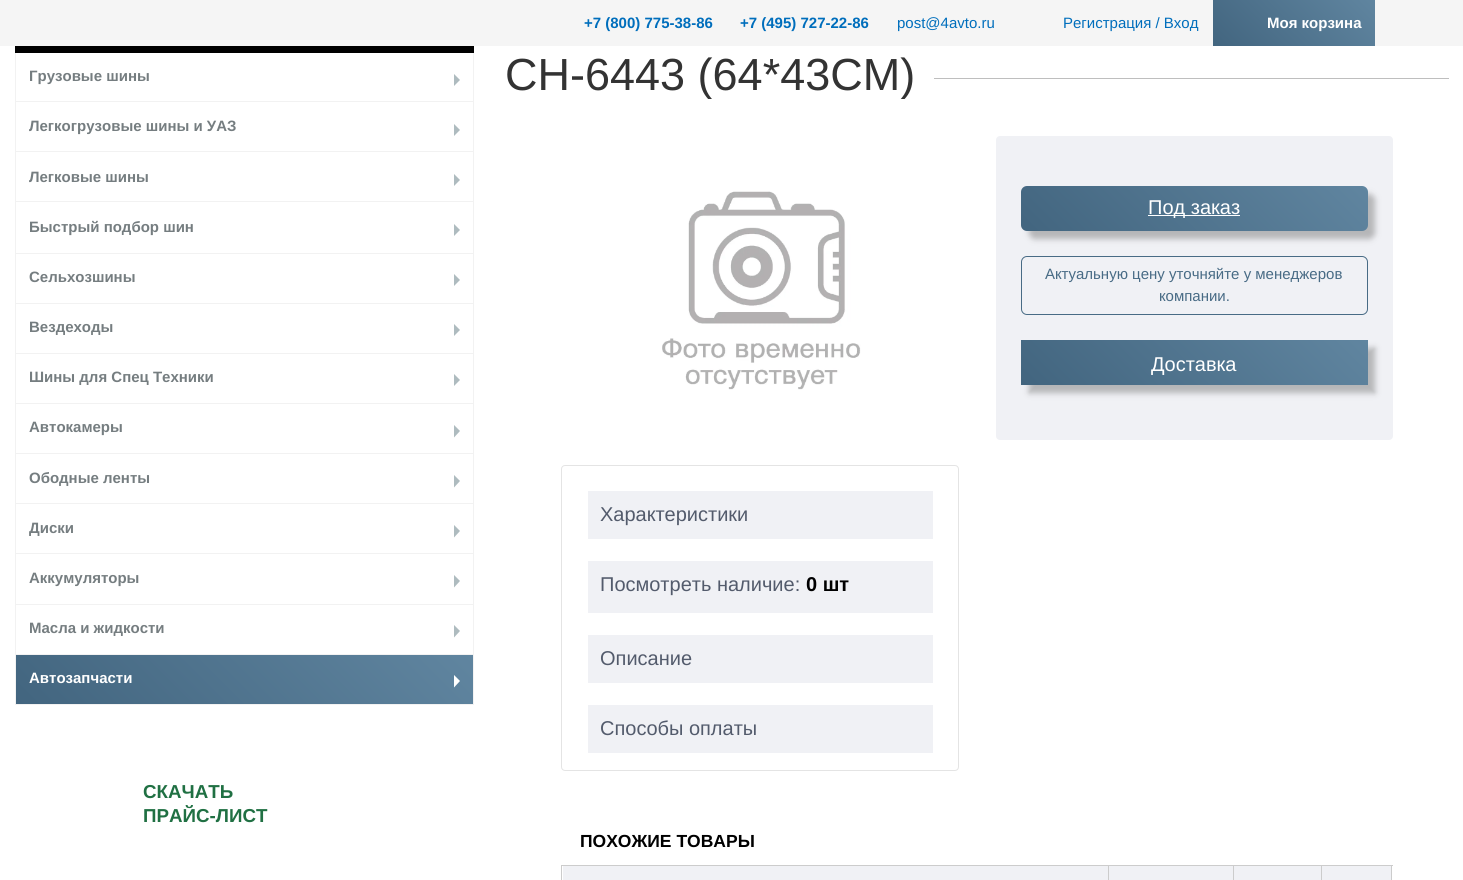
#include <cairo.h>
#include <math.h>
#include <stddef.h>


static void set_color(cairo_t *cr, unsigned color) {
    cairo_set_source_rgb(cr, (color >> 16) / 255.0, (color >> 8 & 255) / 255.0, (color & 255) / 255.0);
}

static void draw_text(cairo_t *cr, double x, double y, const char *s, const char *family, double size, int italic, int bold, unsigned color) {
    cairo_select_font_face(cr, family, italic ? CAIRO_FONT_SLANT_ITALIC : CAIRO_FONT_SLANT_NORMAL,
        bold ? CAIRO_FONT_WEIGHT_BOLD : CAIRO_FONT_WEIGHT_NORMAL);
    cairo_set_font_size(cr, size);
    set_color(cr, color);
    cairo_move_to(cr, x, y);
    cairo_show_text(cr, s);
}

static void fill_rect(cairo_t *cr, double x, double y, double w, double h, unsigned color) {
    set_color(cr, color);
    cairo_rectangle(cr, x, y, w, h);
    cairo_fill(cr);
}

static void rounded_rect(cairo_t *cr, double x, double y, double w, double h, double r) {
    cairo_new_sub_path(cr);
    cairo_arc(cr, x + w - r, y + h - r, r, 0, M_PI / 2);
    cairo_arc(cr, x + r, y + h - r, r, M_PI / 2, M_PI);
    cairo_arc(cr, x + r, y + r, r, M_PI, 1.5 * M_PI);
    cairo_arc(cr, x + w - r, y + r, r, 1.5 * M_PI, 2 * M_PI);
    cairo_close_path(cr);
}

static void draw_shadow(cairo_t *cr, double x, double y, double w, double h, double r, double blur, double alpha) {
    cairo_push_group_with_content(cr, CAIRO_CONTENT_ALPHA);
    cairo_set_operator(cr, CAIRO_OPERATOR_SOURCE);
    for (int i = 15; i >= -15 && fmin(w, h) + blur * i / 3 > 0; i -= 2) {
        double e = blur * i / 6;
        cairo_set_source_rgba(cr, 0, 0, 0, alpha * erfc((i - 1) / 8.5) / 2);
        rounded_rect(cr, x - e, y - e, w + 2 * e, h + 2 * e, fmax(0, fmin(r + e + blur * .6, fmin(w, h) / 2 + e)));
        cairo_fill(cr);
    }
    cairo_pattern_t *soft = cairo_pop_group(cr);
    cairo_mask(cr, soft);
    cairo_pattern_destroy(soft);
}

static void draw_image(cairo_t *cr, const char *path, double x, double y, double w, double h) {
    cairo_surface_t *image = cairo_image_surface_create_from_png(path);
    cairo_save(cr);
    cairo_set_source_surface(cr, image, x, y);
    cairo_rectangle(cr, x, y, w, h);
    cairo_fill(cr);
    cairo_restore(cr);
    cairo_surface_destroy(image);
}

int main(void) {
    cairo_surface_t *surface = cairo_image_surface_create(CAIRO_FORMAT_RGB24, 1463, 880);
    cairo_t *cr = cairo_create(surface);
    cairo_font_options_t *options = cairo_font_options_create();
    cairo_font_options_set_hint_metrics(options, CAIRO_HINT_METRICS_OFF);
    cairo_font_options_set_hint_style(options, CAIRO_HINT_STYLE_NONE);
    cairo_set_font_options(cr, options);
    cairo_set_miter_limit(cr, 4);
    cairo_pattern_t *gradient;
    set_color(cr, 0xFFFFFF);
    cairo_paint(cr);
    fill_rect(cr, 0, 0, 1463, 46, 0xF5F5F5);
    draw_text(cr, 584, 28, "+7 (800) 775-38-86", "Liberation Sans", 15, 0, 1, 0x006EBC);
    draw_text(cr, 740, 28, "+7 (495) 727-22-86", "Liberation Sans", 15, 0, 1, 0x006EBC);
    draw_text(cr, 897, 28, "post@4avto.ru", "Liberation Sans", 15, 0, 0, 0x006EBC);
    draw_text(cr, 1063, 28, "Регистрация / Вход", "Liberation Sans", 15, 0, 0, 0x006EBC);
    gradient = cairo_pattern_create_linear(1242, 75, 1346, -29);
    cairo_pattern_add_color_stop_rgba(gradient, 0, 0.259, 0.396, 0.498, 1);
    cairo_pattern_add_color_stop_rgba(gradient, 1, 0.376, 0.522, 0.627, 1);
    cairo_set_source(cr, gradient);
    cairo_pattern_destroy(gradient);
    cairo_rectangle(cr, 1213, 0, 162, 46);
    cairo_fill(cr);
    draw_text(cr, 1267, 28, "Моя корзина", "Liberation Sans", 15, 0, 1, 0xFFFFFF);
    fill_rect(cr, 15, 46, 459, 7, 0x000000);
    fill_rect(cr, 473, 53, 1, 652, 0xF2F2F2);
    fill_rect(cr, 15, 53, 1, 652, 0xF2F2F2);
    fill_rect(cr, 16, 101, 457, 1, 0xF2F2F2);
    draw_text(cr, 29, 81, "Грузовые шины", "Liberation Sans", 15, 0, 1, 0x757D80);
    set_color(cr, 0xAEBBBF);
    cairo_new_path(cr);
    cairo_move_to(cr, 454, 86);
    cairo_line_to(cr, 454, 74);
    cairo_line_to(cr, 460, 80);
    cairo_close_path(cr);
    cairo_fill(cr);
    fill_rect(cr, 16, 151, 457, 1, 0xF2F2F2);
    draw_text(cr, 29, 131, "Легкогрузовые шины и УАЗ", "Liberation Sans", 15, 0, 1, 0x757D80);
    set_color(cr, 0xAEBBBF);
    cairo_new_path(cr);
    cairo_move_to(cr, 454, 136);
    cairo_line_to(cr, 454, 124);
    cairo_line_to(cr, 460, 130);
    cairo_close_path(cr);
    cairo_fill(cr);
    fill_rect(cr, 16, 201, 457, 1, 0xF2F2F2);
    draw_text(cr, 29, 182, "Легковые шины", "Liberation Sans", 15, 0, 1, 0x757D80);
    set_color(cr, 0xAEBBBF);
    cairo_new_path(cr);
    cairo_move_to(cr, 454, 186);
    cairo_line_to(cr, 454, 174);
    cairo_line_to(cr, 460, 180);
    cairo_close_path(cr);
    cairo_fill(cr);
    fill_rect(cr, 16, 253, 457, 1, 0xF2F2F2);
    draw_text(cr, 29, 232, "Быстрый подбор шин", "Liberation Sans", 15, 0, 1, 0x757D80);
    set_color(cr, 0xAEBBBF);
    cairo_new_path(cr);
    cairo_move_to(cr, 454, 236);
    cairo_line_to(cr, 454, 224);
    cairo_line_to(cr, 460, 230);
    cairo_close_path(cr);
    cairo_fill(cr);
    fill_rect(cr, 16, 303, 457, 1, 0xF2F2F2);
    draw_text(cr, 29, 282, "Сельхозшины", "Liberation Sans", 15, 0, 1, 0x757D80);
    set_color(cr, 0xAEBBBF);
    cairo_new_path(cr);
    cairo_move_to(cr, 454, 286);
    cairo_line_to(cr, 454, 274);
    cairo_line_to(cr, 460, 280);
    cairo_close_path(cr);
    cairo_fill(cr);
    fill_rect(cr, 16, 353, 457, 1, 0xF2F2F2);
    draw_text(cr, 29, 332, "Вездеходы", "Liberation Sans", 15, 0, 1, 0x757D80);
    set_color(cr, 0xAEBBBF);
    cairo_new_path(cr);
    cairo_move_to(cr, 454, 336);
    cairo_line_to(cr, 454, 324);
    cairo_line_to(cr, 460, 330);
    cairo_close_path(cr);
    cairo_fill(cr);
    fill_rect(cr, 16, 403, 457, 1, 0xF2F2F2);
    draw_text(cr, 29, 382, "Шины для Спец Техники", "Liberation Sans", 15, 0, 1, 0x757D80);
    set_color(cr, 0xAEBBBF);
    cairo_new_path(cr);
    cairo_move_to(cr, 454, 386);
    cairo_line_to(cr, 454, 374);
    cairo_line_to(cr, 460, 380);
    cairo_close_path(cr);
    cairo_fill(cr);
    fill_rect(cr, 16, 453, 457, 1, 0xF2F2F2);
    draw_text(cr, 29, 432, "Автокамеры", "Liberation Sans", 15, 0, 1, 0x757D80);
    set_color(cr, 0xAEBBBF);
    cairo_new_path(cr);
    cairo_move_to(cr, 454, 437.5);
    cairo_line_to(cr, 454, 425);
    cairo_line_to(cr, 460, 431);
    cairo_close_path(cr);
    cairo_fill(cr);
    fill_rect(cr, 16, 503, 457, 1, 0xF2F2F2);
    draw_text(cr, 29, 483, "Ободные ленты", "Liberation Sans", 15, 0, 1, 0x757D80);
    set_color(cr, 0xAEBBBF);
    cairo_new_path(cr);
    cairo_move_to(cr, 454, 487.5);
    cairo_line_to(cr, 454, 475);
    cairo_line_to(cr, 460, 481);
    cairo_close_path(cr);
    cairo_fill(cr);
    fill_rect(cr, 16, 553, 457, 1, 0xF2F2F2);
    draw_text(cr, 29, 533, "Диски", "Liberation Sans", 15, 0, 1, 0x757D80);
    set_color(cr, 0xAEBBBF);
    cairo_new_path(cr);
    cairo_move_to(cr, 454, 537.5);
    cairo_line_to(cr, 454, 525);
    cairo_line_to(cr, 460, 531);
    cairo_close_path(cr);
    cairo_fill(cr);
    fill_rect(cr, 16, 604, 457, 1, 0xF2F2F2);
    draw_text(cr, 29, 583, "Аккумуляторы", "Liberation Sans", 15, 0, 1, 0x757D80);
    set_color(cr, 0xAEBBBF);
    cairo_new_path(cr);
    cairo_move_to(cr, 454, 587.5);
    cairo_line_to(cr, 454, 575);
    cairo_line_to(cr, 460, 581);
    cairo_close_path(cr);
    cairo_fill(cr);
    fill_rect(cr, 16, 654, 457, 1, 0xF2F2F2);
    draw_text(cr, 29, 633, "Масла и жидкости", "Liberation Sans", 15, 0, 1, 0x757D80);
    set_color(cr, 0xAEBBBF);
    cairo_new_path(cr);
    cairo_move_to(cr, 454, 637.5);
    cairo_line_to(cr, 454, 625);
    cairo_line_to(cr, 460, 631);
    cairo_close_path(cr);
    cairo_fill(cr);
    gradient = cairo_pattern_create_linear(118, 806, 371, 553);
    cairo_pattern_add_color_stop_rgba(gradient, 0, 0.259, 0.396, 0.498, 1);
    cairo_pattern_add_color_stop_rgba(gradient, 1, 0.376, 0.522, 0.627, 1);
    cairo_set_source(cr, gradient);
    cairo_pattern_destroy(gradient);
    cairo_rectangle(cr, 16, 655, 457, 49);
    cairo_fill(cr);
    fill_rect(cr, 16, 704, 457, 1, 0xF2F2F2);
    draw_text(cr, 29, 683, "Автозапчасти", "Liberation Sans", 15, 0, 1, 0xFFFFFF);
    cairo_new_path(cr);
    cairo_move_to(cr, 454, 687.5);
    cairo_line_to(cr, 454, 675);
    cairo_line_to(cr, 460, 681);
    cairo_close_path(cr);
    cairo_fill(cr);
    draw_text(cr, 143, 798, "СКАЧАТЬ", "Liberation Sans", 18.75, 0, 1, 0x207043);
    draw_text(cr, 143, 822, "ПРАЙС-ЛИСТ", "Liberation Sans", 18.75, 0, 1, 0x207043);
    cairo_save(cr);
    cairo_rectangle(cr, 505, 0, 944, 99);
    cairo_clip(cr);
    draw_text(cr, 505, 90, "CH-6443 (64*43СМ)", "Liberation Sans", 45, 0, 0, 0x333333);
    cairo_restore(cr);
    fill_rect(cr, 934, 78, 515, 1, 0xBEBEBE);
    draw_image(cr, "assets/img1.png", 662, 191, 199, 199);
    set_color(cr, 0xF0F1F5);
    rounded_rect(cr, 996, 136, 397, 304, 4);
    cairo_fill(cr);
    set_color(cr, 0x7A7A7A);
    draw_shadow(cr, 1029, 194, 346, 45, 6, 3, 0.5);
    gradient = cairo_pattern_create_linear(1097, 307, 1292, 111);
    cairo_pattern_add_color_stop_rgba(gradient, 0, 0.259, 0.396, 0.498, 1);
    cairo_pattern_add_color_stop_rgba(gradient, 1, 0.376, 0.522, 0.627, 1);
    cairo_set_source(cr, gradient);
    cairo_pattern_destroy(gradient);
    rounded_rect(cr, 1021, 186, 347, 45, 6);
    cairo_fill(cr);
    fill_rect(cr, 1148, 215, 92, 1, 0xFFFFFF);
    draw_text(cr, 1148, 214, "Под заказ", "Liberation Sans", 20, 0, 0, 0xFFFFFF);
    rounded_rect(cr, 1021.5, 256.5, 346, 58, 5.5);
    set_color(cr, 0x486B85);
    cairo_set_line_width(cr, 1);
    cairo_stroke(cr);
    draw_text(cr, 1045, 279, "Актуальную цену уточняйте у менеджеров", "Liberation Sans", 15, 0, 0, 0x486B85);
    draw_text(cr, 1159, 301, "компании.", "Liberation Sans", 15, 0, 0, 0x486B85);
    set_color(cr, 0x7A7A7A);
    draw_shadow(cr, 1029, 348, 346, 45, 0, 3, 0.5);
    gradient = cairo_pattern_create_linear(1097, 460, 1292, 265);
    cairo_pattern_add_color_stop_rgba(gradient, 0, 0.259, 0.396, 0.498, 1);
    cairo_pattern_add_color_stop_rgba(gradient, 1, 0.376, 0.522, 0.627, 1);
    cairo_set_source(cr, gradient);
    cairo_pattern_destroy(gradient);
    cairo_rectangle(cr, 1021, 340, 347, 45);
    cairo_fill(cr);
    draw_text(cr, 1151, 371, "Доставка", "Liberation Sans", 20, 0, 0, 0xFFFFFF);
    rounded_rect(cr, 561.5, 465.5, 397, 305, 3.5);
    set_color(cr, 0xE4E4E4);
    cairo_stroke(cr);
    fill_rect(cr, 588, 491, 345, 48, 0xF0F1F5);
    draw_text(cr, 600, 521, "Характеристики", "Liberation Sans", 20, 0, 0, 0x535B6C);
    fill_rect(cr, 588, 561, 345, 52, 0xF0F1F5);
    draw_text(cr, 600, 591, "Посмотреть наличие:", "Liberation Sans", 20, 0, 0, 0x535B6C);
    draw_text(cr, 806, 591, "0 шт", "Liberation Sans", 20, 0, 1, 0x000000);
    fill_rect(cr, 588, 635, 345, 48, 0xF0F1F5);
    draw_text(cr, 600, 665, "Описание", "Liberation Sans", 20, 0, 0, 0x535B6C);
    fill_rect(cr, 588, 705, 345, 48, 0xF0F1F5);
    draw_text(cr, 600, 735, "Способы оплаты", "Liberation Sans", 20, 0, 0, 0x535B6C);
    draw_text(cr, 580, 847, "ПОХОЖИЕ ТОВАРЫ", "Liberation Sans", 17.5, 0, 1, 0x000000);
    fill_rect(cr, 563, 866, 828, 14, 0xF0F1F5);
    fill_rect(cr, 1321, 865, 72, 1, 0xCCCCCC);
    fill_rect(cr, 1321, 865, 1, 15, 0xCCCCCC);
    fill_rect(cr, 1233, 865, 90, 1, 0xCCCCCC);
    fill_rect(cr, 1233, 865, 1, 15, 0xCCCCCC);
    fill_rect(cr, 1108, 865, 126, 1, 0xCCCCCC);
    fill_rect(cr, 1108, 865, 1, 15, 0xCCCCCC);
    fill_rect(cr, 561, 865, 548, 1, 0xCCCCCC);
    fill_rect(cr, 561, 865, 1, 15, 0xCCCCCC);
    fill_rect(cr, 1391, 865, 1, 15, 0xCCCCCC);
    cairo_surface_write_to_png(surface, "output.png");
    cairo_font_options_destroy(options);
    cairo_destroy(cr);
    cairo_surface_destroy(surface);
    return 0;
}
